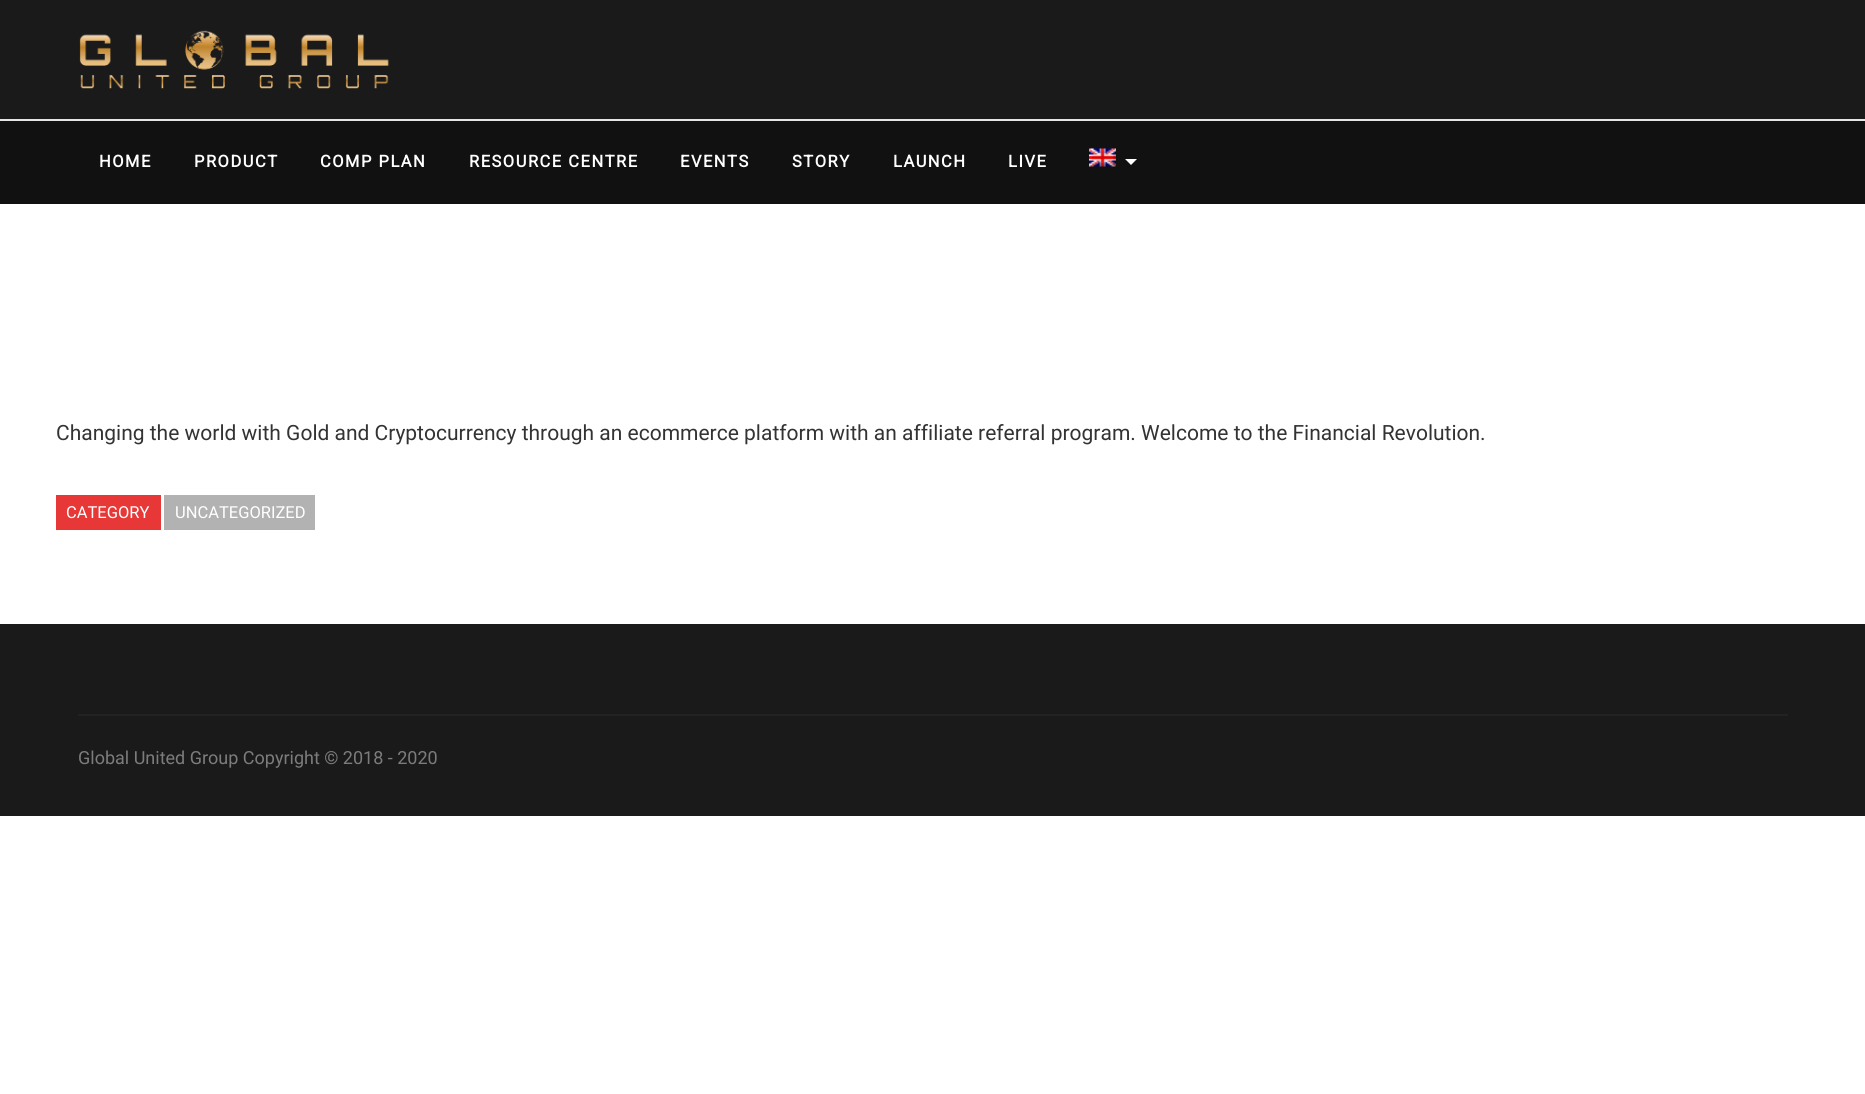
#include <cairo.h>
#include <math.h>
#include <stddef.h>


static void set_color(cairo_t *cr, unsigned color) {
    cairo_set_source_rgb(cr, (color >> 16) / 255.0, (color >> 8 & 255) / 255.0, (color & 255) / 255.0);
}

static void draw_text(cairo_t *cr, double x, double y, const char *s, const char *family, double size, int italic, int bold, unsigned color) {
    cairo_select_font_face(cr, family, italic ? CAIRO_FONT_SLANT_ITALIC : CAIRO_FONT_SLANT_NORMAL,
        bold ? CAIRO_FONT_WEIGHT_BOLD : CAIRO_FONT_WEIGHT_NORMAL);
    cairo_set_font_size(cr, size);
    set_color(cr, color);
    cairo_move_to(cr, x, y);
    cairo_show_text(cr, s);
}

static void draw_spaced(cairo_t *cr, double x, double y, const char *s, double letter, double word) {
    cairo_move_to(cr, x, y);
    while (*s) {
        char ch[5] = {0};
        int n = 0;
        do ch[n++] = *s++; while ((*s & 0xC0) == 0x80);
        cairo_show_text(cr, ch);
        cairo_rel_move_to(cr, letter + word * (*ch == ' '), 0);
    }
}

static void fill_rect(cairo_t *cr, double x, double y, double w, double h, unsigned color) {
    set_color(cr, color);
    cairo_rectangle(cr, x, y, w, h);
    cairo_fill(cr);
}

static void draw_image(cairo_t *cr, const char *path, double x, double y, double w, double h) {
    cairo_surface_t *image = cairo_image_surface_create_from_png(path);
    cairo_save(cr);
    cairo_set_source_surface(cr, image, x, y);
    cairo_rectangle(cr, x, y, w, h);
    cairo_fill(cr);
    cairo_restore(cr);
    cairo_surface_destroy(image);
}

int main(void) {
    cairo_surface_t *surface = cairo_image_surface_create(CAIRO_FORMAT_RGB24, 1865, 1094);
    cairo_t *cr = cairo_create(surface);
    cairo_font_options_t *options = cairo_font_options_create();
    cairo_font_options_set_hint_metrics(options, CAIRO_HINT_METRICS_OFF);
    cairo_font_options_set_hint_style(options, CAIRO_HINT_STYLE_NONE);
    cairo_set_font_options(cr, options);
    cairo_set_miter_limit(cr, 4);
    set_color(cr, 0xFFFFFF);
    cairo_paint(cr);
    fill_rect(cr, 0, 0, 1865, 119, 0x1A1A1A);
    fill_rect(cr, 0, 119, 1865, 2, 0xE5E5E5);
    draw_image(cr, "assets/img1.png", 79, 30, 310, 59);
    fill_rect(cr, 0, 121, 1865, 83, 0x111111);
    cairo_select_font_face(cr, "Roboto", CAIRO_FONT_SLANT_NORMAL, CAIRO_FONT_WEIGHT_BOLD);
    cairo_set_font_size(cr, 16.5);
    set_color(cr, 0xFFFFFF);
    draw_spaced(cr, 99, 167, "HOME", 1.5, 0);
    draw_spaced(cr, 194, 167, "PRODUCT", 1.5, 0);
    draw_spaced(cr, 320, 167, "COMP PLAN", 1.5, 0);
    draw_spaced(cr, 469, 167, "RESOURCE CENTRE", 1.5, 0);
    draw_spaced(cr, 680, 167, "EVENTS", 1.5, 0);
    draw_spaced(cr, 792, 167, "STORY", 1.5, 0);
    draw_spaced(cr, 893, 167, "LAUNCH", 1.5, 0);
    draw_spaced(cr, 1008, 167, "LIVE", 1.5, 0);
    draw_image(cr, "assets/img2.png", 1089, 148, 27, 19);
    cairo_new_path(cr);
    cairo_move_to(cr, 1125, 159);
    cairo_line_to(cr, 1137, 159);
    cairo_line_to(cr, 1131, 165);
    cairo_close_path(cr);
    cairo_fill(cr);
    draw_text(cr, 56, 440, "Changing the world with Gold and Cryptocurrency through an ecommerce platform with an affiliate referral program. Welcome to the Financial Revolution.", "Roboto", 21, 0, 0, 0x333333);
    fill_rect(cr, 56, 495, 105, 35, 0xE73737);
    draw_text(cr, 66, 518, "CATEGORY", "Roboto", 16.5, 0, 0, 0xFFFFFF);
    fill_rect(cr, 164, 495, 151, 35, 0xB2B2B2);
    draw_text(cr, 175, 518, "UNCATEGORIZED", "Roboto", 16.5, 0, 0, 0xFFFFFF);
    fill_rect(cr, 0, 624, 1865, 192, 0x1A1A1A);
    fill_rect(cr, 78, 714, 1710, 2, 0x222222);
    draw_text(cr, 78, 764, "Global United Group Copyright © 2018 - 2020", "Roboto", 18, 0, 0, 0x7E7B7B);
    cairo_surface_write_to_png(surface, "output.png");
    cairo_font_options_destroy(options);
    cairo_destroy(cr);
    cairo_surface_destroy(surface);
    return 0;
}
